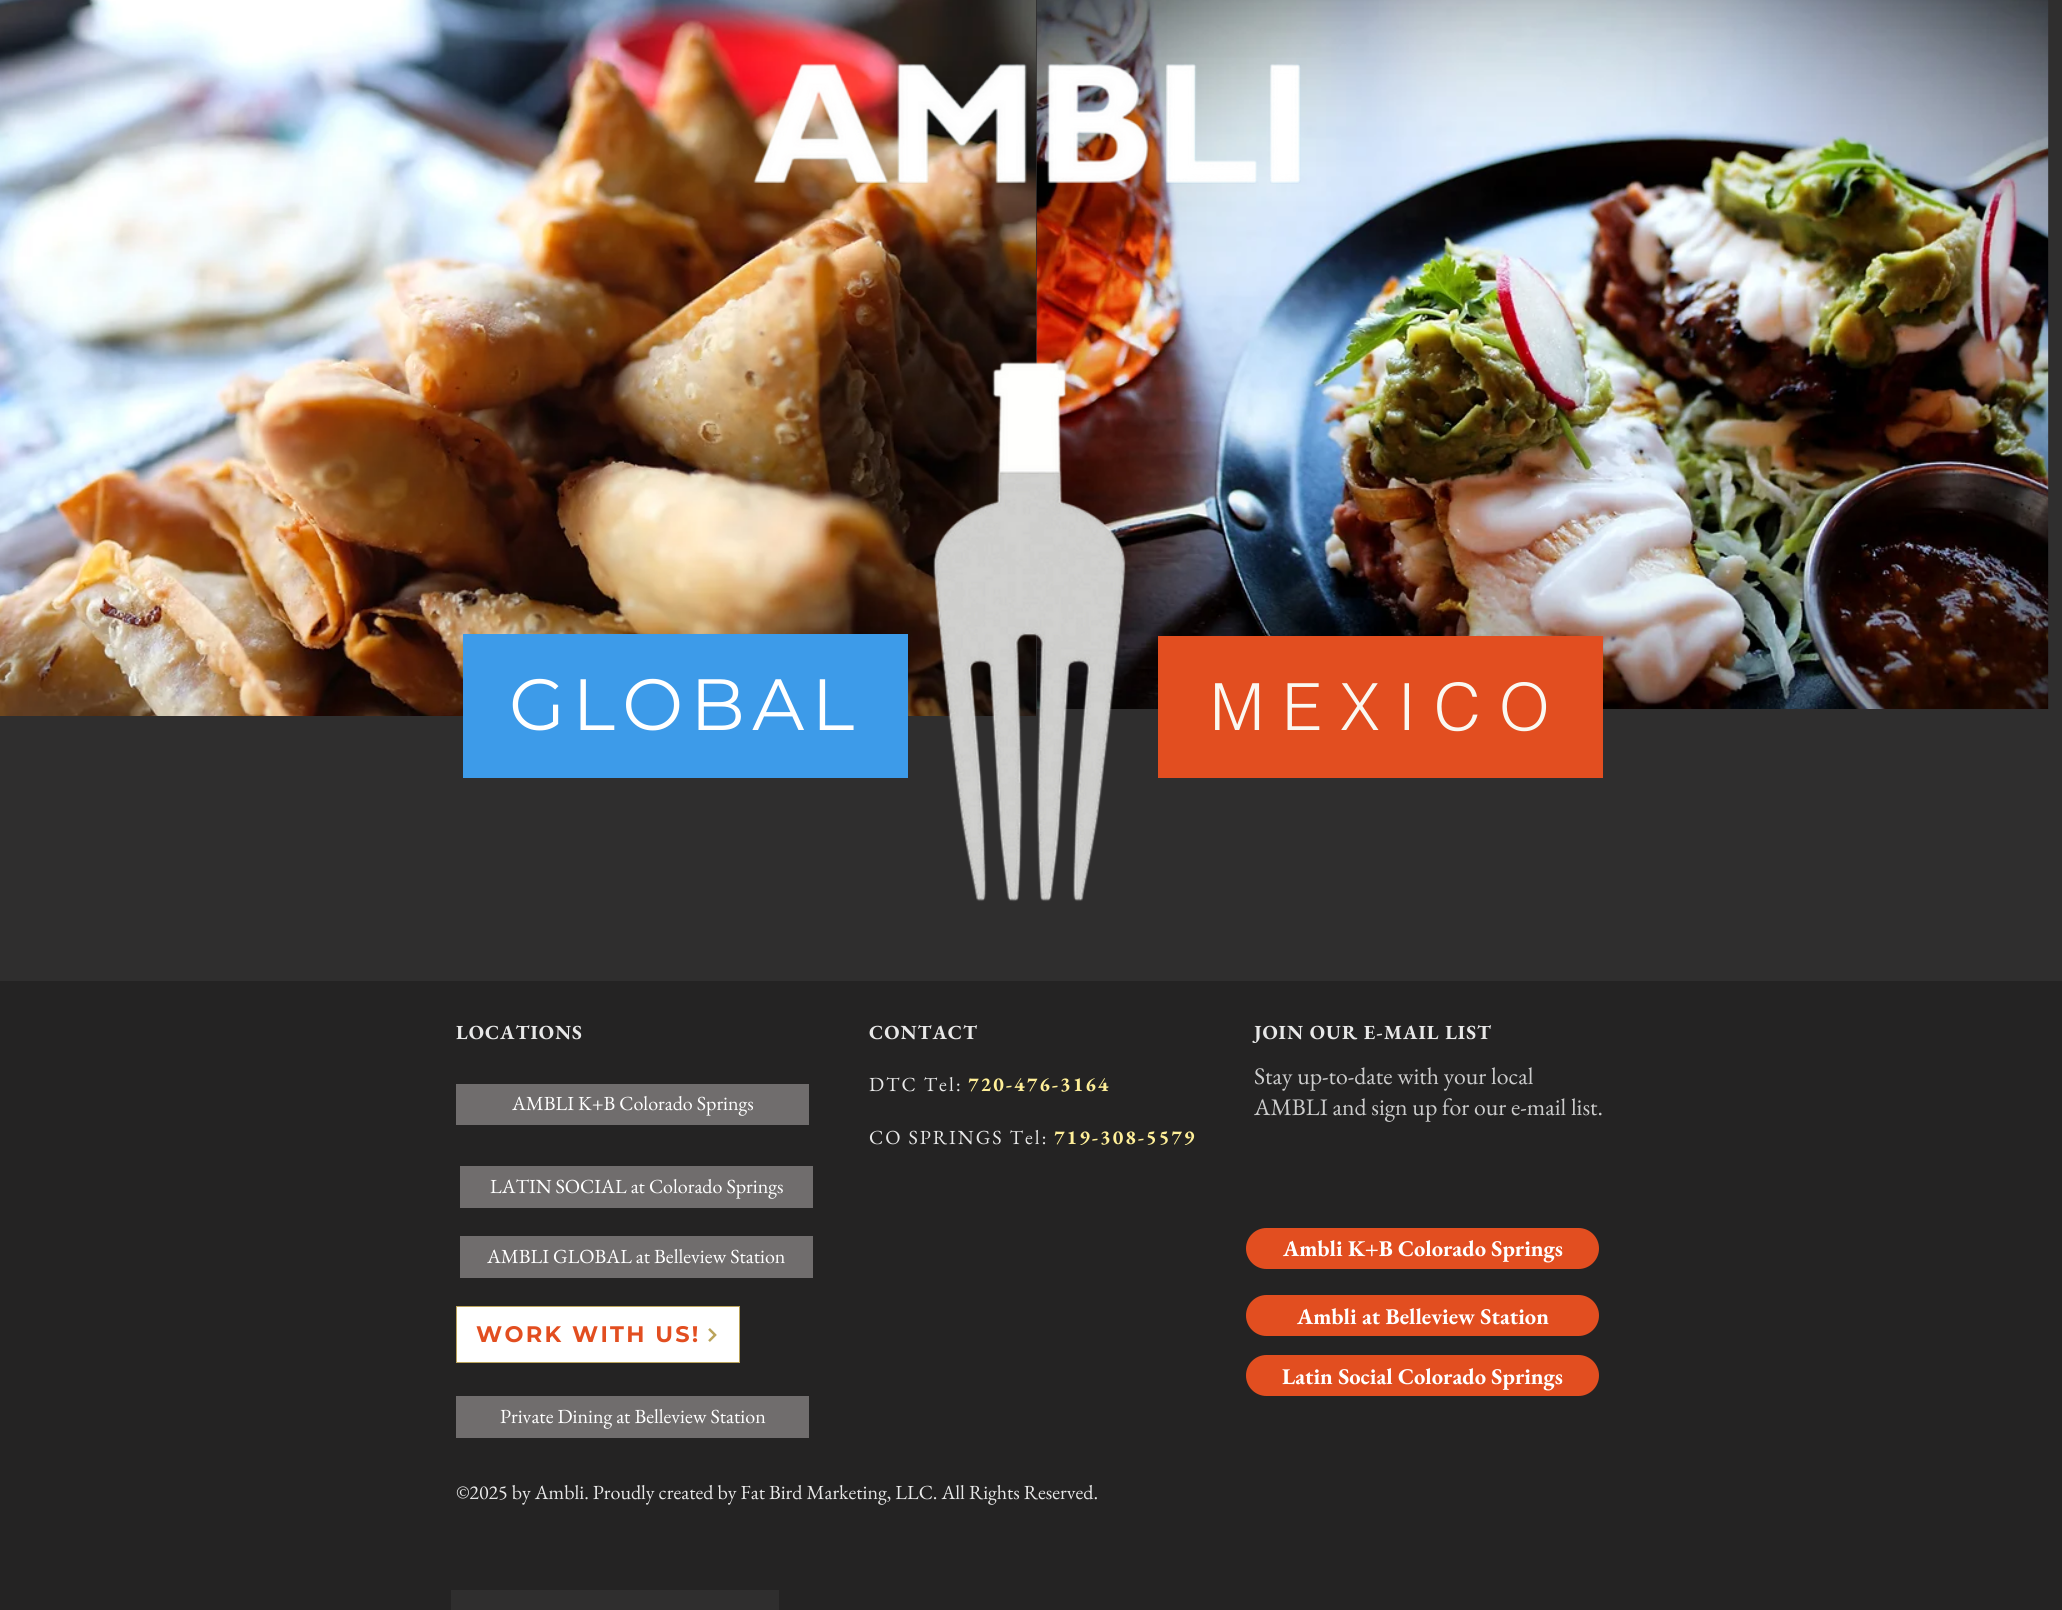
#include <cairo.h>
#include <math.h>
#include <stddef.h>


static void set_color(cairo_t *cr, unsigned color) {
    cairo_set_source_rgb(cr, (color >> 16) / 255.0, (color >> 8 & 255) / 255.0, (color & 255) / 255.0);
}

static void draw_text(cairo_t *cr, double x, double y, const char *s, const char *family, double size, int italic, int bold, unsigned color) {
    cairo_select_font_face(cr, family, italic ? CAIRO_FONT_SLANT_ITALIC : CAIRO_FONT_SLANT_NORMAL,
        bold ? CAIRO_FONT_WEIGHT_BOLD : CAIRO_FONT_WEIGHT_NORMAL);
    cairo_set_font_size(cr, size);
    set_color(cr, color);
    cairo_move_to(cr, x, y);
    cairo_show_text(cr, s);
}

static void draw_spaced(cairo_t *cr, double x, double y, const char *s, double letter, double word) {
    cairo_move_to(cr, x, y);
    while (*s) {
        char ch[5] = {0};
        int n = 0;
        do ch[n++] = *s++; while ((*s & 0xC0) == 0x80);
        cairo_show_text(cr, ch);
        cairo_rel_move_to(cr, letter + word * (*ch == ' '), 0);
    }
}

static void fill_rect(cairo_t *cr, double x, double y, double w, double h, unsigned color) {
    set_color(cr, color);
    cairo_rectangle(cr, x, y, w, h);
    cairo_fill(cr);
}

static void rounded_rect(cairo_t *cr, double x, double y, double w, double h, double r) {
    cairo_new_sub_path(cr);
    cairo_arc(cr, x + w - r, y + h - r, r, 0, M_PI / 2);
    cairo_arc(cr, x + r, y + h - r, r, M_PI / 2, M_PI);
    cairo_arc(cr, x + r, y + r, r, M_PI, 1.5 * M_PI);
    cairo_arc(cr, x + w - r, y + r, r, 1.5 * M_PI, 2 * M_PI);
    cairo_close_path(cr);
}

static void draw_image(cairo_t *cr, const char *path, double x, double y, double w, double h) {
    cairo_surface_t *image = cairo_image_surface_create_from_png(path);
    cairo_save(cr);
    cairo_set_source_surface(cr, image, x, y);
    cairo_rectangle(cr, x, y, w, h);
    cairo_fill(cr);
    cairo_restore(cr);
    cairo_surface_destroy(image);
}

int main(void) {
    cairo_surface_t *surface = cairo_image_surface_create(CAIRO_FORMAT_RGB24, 2062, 1610);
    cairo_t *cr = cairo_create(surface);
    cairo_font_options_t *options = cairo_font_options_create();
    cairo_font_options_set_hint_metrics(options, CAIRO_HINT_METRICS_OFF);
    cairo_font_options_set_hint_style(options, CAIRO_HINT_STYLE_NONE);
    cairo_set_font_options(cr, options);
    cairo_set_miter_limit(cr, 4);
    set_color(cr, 0x2F2E2E);
    cairo_paint(cr);
    draw_image(cr, "assets/img1.png", 0, 0, 1036, 716);
    draw_image(cr, "assets/img2.png", 1036, 0, 1013, 709);
    draw_image(cr, "assets/img3.png", 753, 63, 548, 121);
    fill_rect(cr, 463, 634, 445, 144, 0x3D9BE9);
    cairo_select_font_face(cr, "Montserrat", CAIRO_FONT_SLANT_NORMAL, CAIRO_FONT_WEIGHT_NORMAL);
    cairo_set_font_size(cr, 72.5);
    set_color(cr, 0xFFFFFF);
    draw_spaced(cr, 509, 730, "GLOBAL", 7.25, 0);
    draw_image(cr, "assets/img4.png", 933, 361, 193, 541);
    fill_rect(cr, 1158, 636, 445, 142, 0xE24E20);
    draw_text(cr, 1210, 730, "M E X I C O", "helvetica Light", 65, 0, 0, 0xFAF8F1);
    fill_rect(cr, 0, 981, 2062, 629, 0x242323);
    cairo_select_font_face(cr, "EB Garamond", CAIRO_FONT_SLANT_NORMAL, CAIRO_FONT_WEIGHT_BOLD);
    cairo_set_font_size(cr, 20);
    set_color(cr, 0xE8E8E8);
    draw_spaced(cr, 456, 1039, "LOCATIONS", 1, 0);
    draw_spaced(cr, 869, 1039, "CONTACT", 1, 0);
    cairo_select_font_face(cr, "EB Garamond", CAIRO_FONT_SLANT_NORMAL, CAIRO_FONT_WEIGHT_NORMAL);
    draw_spaced(cr, 869, 1091, "DTC Tel:", 2, 0);
    cairo_select_font_face(cr, "EB Garamond", CAIRO_FONT_SLANT_NORMAL, CAIRO_FONT_WEIGHT_BOLD);
    set_color(cr, 0xFFEF98);
    draw_spaced(cr, 968, 1091, "720-476-3164", 2, 0);
    cairo_select_font_face(cr, "EB Garamond", CAIRO_FONT_SLANT_NORMAL, CAIRO_FONT_WEIGHT_NORMAL);
    set_color(cr, 0xE8E8E8);
    draw_spaced(cr, 869, 1144, "CO SPRINGS Tel:", 2, 0);
    cairo_select_font_face(cr, "EB Garamond", CAIRO_FONT_SLANT_NORMAL, CAIRO_FONT_WEIGHT_BOLD);
    set_color(cr, 0xFFEF98);
    draw_spaced(cr, 1054, 1144, "719-308-5579", 2, 0);
    set_color(cr, 0xE8E8E8);
    draw_spaced(cr, 1254, 1039, "JOIN OUR E-MAIL LIST", 1, 0);
    fill_rect(cr, 456, 1084, 353, 41, 0x706D6D);
    draw_text(cr, 512, 1110, "AMBLI K+B Colorado Springs", "EB Garamond", 20, 0, 0, 0xFFFFFF);
    draw_text(cr, 1254, 1084, "Stay up-to-date with your local", "EB Garamond", 23.75, 0, 0, 0xCCCCCC);
    draw_text(cr, 1254, 1115, "AMBLI and sign up for our e-mail list.", "EB Garamond", 23.75, 0, 0, 0xCCCCCC);
    fill_rect(cr, 460, 1166, 353, 42, 0x706D6D);
    draw_text(cr, 490, 1193, "LATIN SOCIAL at Colorado Springs", "EB Garamond", 20, 0, 0, 0xFFFFFF);
    fill_rect(cr, 460, 1236, 353, 42, 0x706D6D);
    draw_text(cr, 487, 1263, "AMBLI GLOBAL at Belleview Station", "EB Garamond", 20, 0, 0, 0xFFFFFF);
    set_color(cr, 0xE24E20);
    rounded_rect(cr, 1246, 1228, 353, 41, 20.5);
    cairo_fill(cr);
    draw_text(cr, 1283, 1256, "Ambli K+B Colorado Springs", "EB Garamond", 22.5, 0, 1, 0xFFFFFF);
    set_color(cr, 0xE24E20);
    rounded_rect(cr, 1246, 1295, 353, 41, 20.5);
    cairo_fill(cr);
    draw_text(cr, 1297, 1324, "Ambli at Belleview Station", "EB Garamond", 22.5, 0, 1, 0xFFFFFF);
    cairo_rectangle(cr, 456.5, 1306.5, 283, 56);
    cairo_fill_preserve(cr);
    set_color(cr, 0xBBA45B);
    cairo_set_line_width(cr, 1);
    cairo_stroke(cr);
    cairo_select_font_face(cr, "Montserrat", CAIRO_FONT_SLANT_NORMAL, CAIRO_FONT_WEIGHT_BOLD);
    set_color(cr, 0xE24E20);
    draw_spaced(cr, 476, 1342, "WORK WITH US!", 2.25, 0);
    draw_image(cr, "assets/img5.png", 708, 1328, 9, 14);
    rounded_rect(cr, 1246, 1355, 353, 41, 20.5);
    cairo_fill(cr);
    draw_text(cr, 1282, 1384, "Latin Social Colorado Springs", "EB Garamond", 22.5, 0, 1, 0xFFFFFF);
    fill_rect(cr, 456, 1396, 353, 42, 0x706D6D);
    draw_text(cr, 500, 1423, "Private Dining at Belleview Station", "EB Garamond", 20, 0, 0, 0xFFFFFF);
    draw_text(cr, 456, 1499, "©2025 by Ambli. Proudly created by Fat Bird Marketing, LLC. All Rights Reserved.", "EB Garamond", 20, 0, 0, 0xE8E8E8);
    fill_rect(cr, 451, 1590, 328, 20, 0x2F2E2E);
    cairo_surface_write_to_png(surface, "output.png");
    cairo_font_options_destroy(options);
    cairo_destroy(cr);
    cairo_surface_destroy(surface);
    return 0;
}
